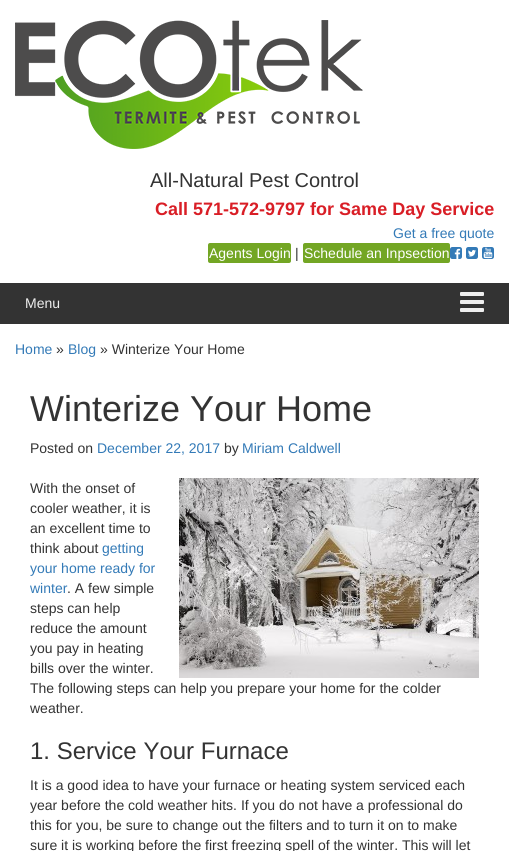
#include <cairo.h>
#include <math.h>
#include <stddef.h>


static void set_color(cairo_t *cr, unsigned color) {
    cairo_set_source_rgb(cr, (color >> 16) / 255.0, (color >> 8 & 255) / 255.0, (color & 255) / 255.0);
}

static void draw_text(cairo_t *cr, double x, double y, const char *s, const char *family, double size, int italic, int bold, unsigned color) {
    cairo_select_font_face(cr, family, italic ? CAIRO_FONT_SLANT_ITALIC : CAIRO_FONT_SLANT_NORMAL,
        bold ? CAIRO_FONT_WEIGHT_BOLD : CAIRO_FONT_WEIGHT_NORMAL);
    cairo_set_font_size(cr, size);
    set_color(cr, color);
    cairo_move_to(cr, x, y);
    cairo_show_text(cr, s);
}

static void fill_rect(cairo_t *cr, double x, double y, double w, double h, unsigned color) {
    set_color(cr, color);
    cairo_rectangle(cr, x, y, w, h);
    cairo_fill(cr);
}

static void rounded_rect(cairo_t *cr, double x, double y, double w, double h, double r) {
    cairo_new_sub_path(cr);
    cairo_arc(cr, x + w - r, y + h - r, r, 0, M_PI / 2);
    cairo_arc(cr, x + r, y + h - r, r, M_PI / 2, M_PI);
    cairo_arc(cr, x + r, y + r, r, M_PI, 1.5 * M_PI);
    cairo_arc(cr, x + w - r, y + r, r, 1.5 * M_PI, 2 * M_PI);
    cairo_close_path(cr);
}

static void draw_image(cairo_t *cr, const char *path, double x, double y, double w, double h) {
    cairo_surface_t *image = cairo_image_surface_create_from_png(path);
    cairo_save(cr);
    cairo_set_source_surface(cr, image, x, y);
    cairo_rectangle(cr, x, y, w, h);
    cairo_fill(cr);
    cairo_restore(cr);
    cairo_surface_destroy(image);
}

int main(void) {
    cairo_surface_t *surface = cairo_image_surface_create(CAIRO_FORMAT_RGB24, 509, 851);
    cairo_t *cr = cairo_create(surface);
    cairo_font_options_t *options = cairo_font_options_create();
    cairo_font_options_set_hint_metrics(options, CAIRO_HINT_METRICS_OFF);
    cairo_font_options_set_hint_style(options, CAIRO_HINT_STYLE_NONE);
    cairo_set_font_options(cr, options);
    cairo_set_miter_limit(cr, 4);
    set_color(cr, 0xFFFFFF);
    cairo_paint(cr);
    draw_image(cr, "assets/img1.png", 15, 20, 348, 129);
    draw_text(cr, 150, 187, "All-Natural Pest Control", "Liberation Sans", 20, 0, 0, 0x333333);
    draw_text(cr, 155, 215, "Call 571-572-9797 for Same Day Service", "Liberation Sans", 18, 0, 1, 0xD91E26);
    draw_text(cr, 393, 238, "Get a free quote", "Liberation Sans", 14, 0, 0, 0x337AB7);
    set_color(cr, 0x73A624);
    rounded_rect(cr, 208, 243, 83, 20, 2);
    cairo_fill(cr);
    draw_text(cr, 209, 258, "Agents Login", "Liberation Sans", 14, 0, 0, 0xFFFFFF);
    draw_text(cr, 295, 258, "|", "Liberation Sans", 14, 0, 0, 0x333333);
    set_color(cr, 0x73A624);
    rounded_rect(cr, 303, 243, 147, 20, 2);
    cairo_fill(cr);
    draw_text(cr, 304, 258, "Schedule an Inpsection", "Liberation Sans", 14, 0, 0, 0xFFFFFF);
    draw_image(cr, "assets/img2.png", 450, 247, 12, 12);
    draw_image(cr, "assets/img3.png", 466, 247, 12, 12);
    draw_image(cr, "assets/img4.png", 482, 247, 12, 12);
    fill_rect(cr, 0, 283, 509, 41, 0x333333);
    draw_text(cr, 25, 308, "Menu", "Liberation Sans", 14, 0, 0, 0xEEEEEE);
    draw_image(cr, "assets/img5.png", 460, 292, 24, 20);
    draw_text(cr, 15, 354, "Home", "Liberation Sans", 14, 0, 0, 0x337AB7);
    draw_text(cr, 56, 354, "»", "Liberation Sans", 14, 0, 0, 0x333333);
    draw_text(cr, 68, 354, "Blog", "Liberation Sans", 14, 0, 0, 0x337AB7);
    draw_text(cr, 100, 354, "» Winterize Your Home", "Liberation Sans", 14, 0, 0, 0x333333);
    draw_text(cr, 30, 421, "Winterize Your Home", "Liberation Sans", 36, 0, 0, 0x333333);
    draw_text(cr, 30, 453, "Posted on", "Liberation Sans", 14, 0, 0, 0x333333);
    draw_text(cr, 97, 453, "December 22, 2017", "Liberation Sans", 14, 0, 0, 0x337AB7);
    draw_text(cr, 224, 453, "by", "Liberation Sans", 14, 0, 0, 0x333333);
    draw_text(cr, 242, 453, "Miriam Caldwell", "Liberation Sans", 14, 0, 0, 0x337AB7);
    draw_text(cr, 30, 493, "With the onset of", "Liberation Sans", 14, 0, 0, 0x333333);
    draw_image(cr, "assets/img6.png", 179, 478, 300, 200);
    draw_text(cr, 30, 513, "cooler weather, it is", "Liberation Sans", 14, 0, 0, 0x333333);
    draw_text(cr, 30, 533, "an excellent time to", "Liberation Sans", 14, 0, 0, 0x333333);
    draw_text(cr, 30, 553, "think about", "Liberation Sans", 14, 0, 0, 0x333333);
    draw_text(cr, 102, 553, "getting", "Liberation Sans", 14, 0, 0, 0x337AB7);
    draw_text(cr, 30, 573, "your home ready for", "Liberation Sans", 14, 0, 0, 0x337AB7);
    draw_text(cr, 30, 593, "winter", "Liberation Sans", 14, 0, 0, 0x337AB7);
    draw_text(cr, 67, 593, ". A few simple", "Liberation Sans", 14, 0, 0, 0x333333);
    draw_text(cr, 30, 613, "steps can help", "Liberation Sans", 14, 0, 0, 0x333333);
    draw_text(cr, 30, 633, "reduce the amount", "Liberation Sans", 14, 0, 0, 0x333333);
    draw_text(cr, 30, 653, "you pay in heating", "Liberation Sans", 14, 0, 0, 0x333333);
    draw_text(cr, 30, 673, "bills over the winter.", "Liberation Sans", 14, 0, 0, 0x333333);
    draw_text(cr, 30, 693, "The following steps can help you prepare your home for the colder", "Liberation Sans", 14, 0, 0, 0x333333);
    draw_text(cr, 30, 713, "weather.", "Liberation Sans", 14, 0, 0, 0x333333);
    draw_text(cr, 30, 759, "1. Service Your Furnace", "Liberation Sans", 24, 0, 0, 0x333333);
    draw_text(cr, 30, 790, "It is a good idea to have your furnace or heating system serviced each", "Liberation Sans", 14, 0, 0, 0x333333);
    draw_text(cr, 30, 810, "year before the cold weather hits. If you do not have a professional do", "Liberation Sans", 14, 0, 0, 0x333333);
    draw_text(cr, 30, 830, "this for you, be sure to change out the filters and to turn it on to make", "Liberation Sans", 14, 0, 0, 0x333333);
    draw_text(cr, 30, 850, "sure it is working before the first freezing spell of the winter. This will let", "Liberation Sans", 14, 0, 0, 0x333333);
    cairo_surface_write_to_png(surface, "output.png");
    cairo_font_options_destroy(options);
    cairo_destroy(cr);
    cairo_surface_destroy(surface);
    return 0;
}
